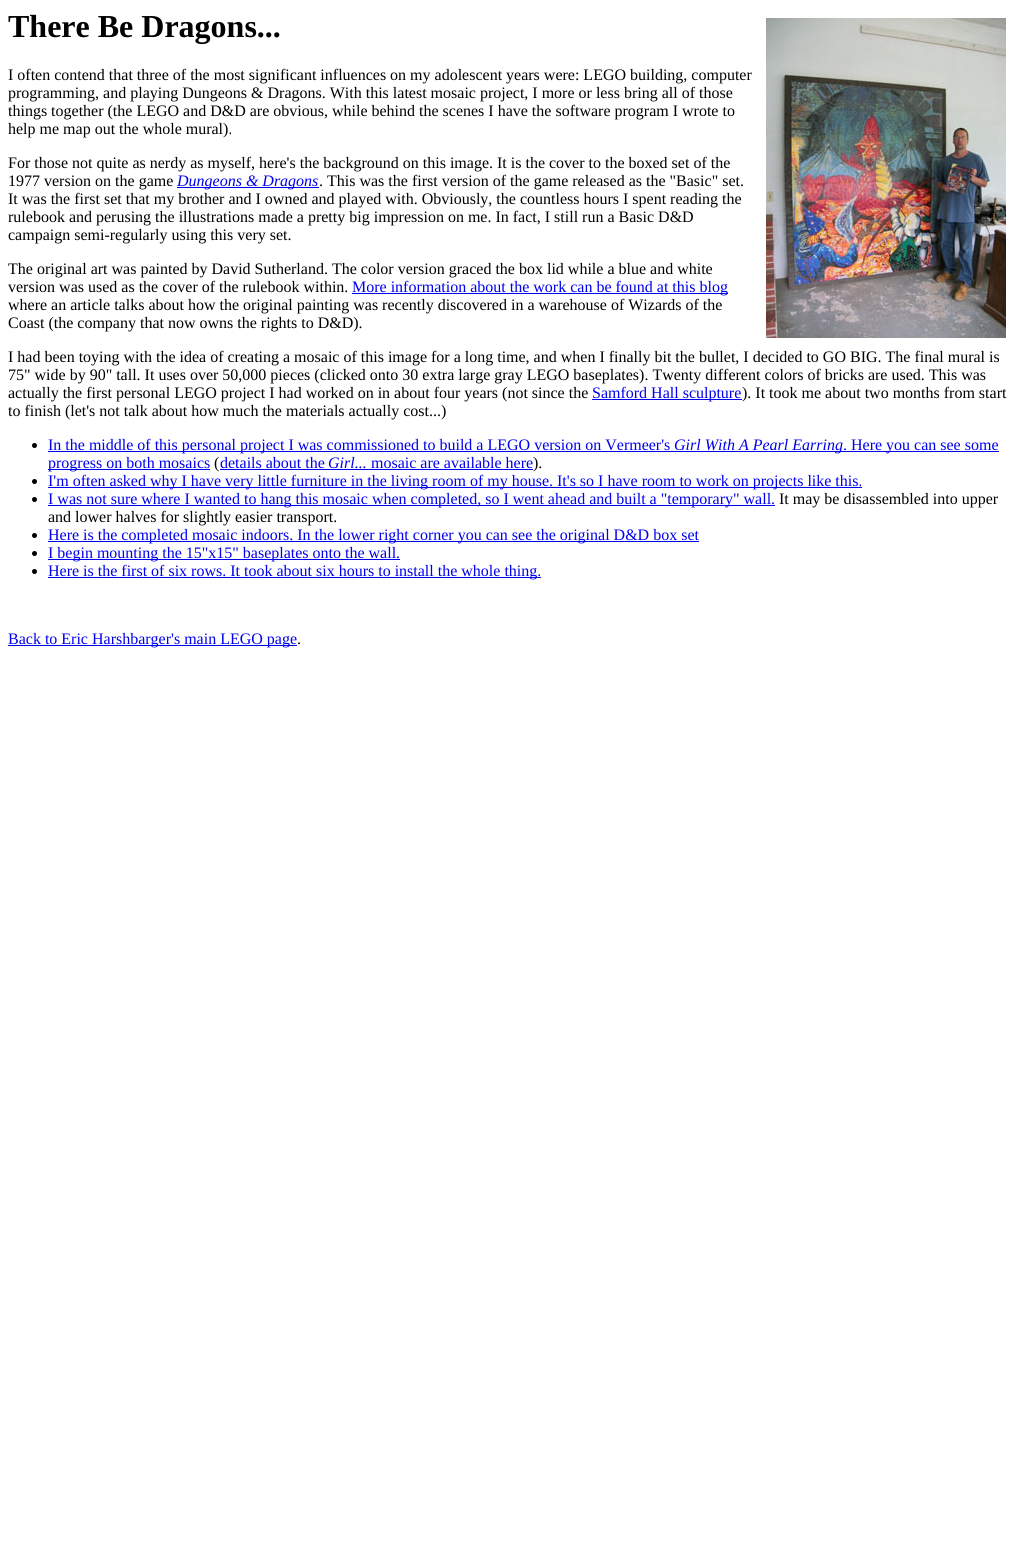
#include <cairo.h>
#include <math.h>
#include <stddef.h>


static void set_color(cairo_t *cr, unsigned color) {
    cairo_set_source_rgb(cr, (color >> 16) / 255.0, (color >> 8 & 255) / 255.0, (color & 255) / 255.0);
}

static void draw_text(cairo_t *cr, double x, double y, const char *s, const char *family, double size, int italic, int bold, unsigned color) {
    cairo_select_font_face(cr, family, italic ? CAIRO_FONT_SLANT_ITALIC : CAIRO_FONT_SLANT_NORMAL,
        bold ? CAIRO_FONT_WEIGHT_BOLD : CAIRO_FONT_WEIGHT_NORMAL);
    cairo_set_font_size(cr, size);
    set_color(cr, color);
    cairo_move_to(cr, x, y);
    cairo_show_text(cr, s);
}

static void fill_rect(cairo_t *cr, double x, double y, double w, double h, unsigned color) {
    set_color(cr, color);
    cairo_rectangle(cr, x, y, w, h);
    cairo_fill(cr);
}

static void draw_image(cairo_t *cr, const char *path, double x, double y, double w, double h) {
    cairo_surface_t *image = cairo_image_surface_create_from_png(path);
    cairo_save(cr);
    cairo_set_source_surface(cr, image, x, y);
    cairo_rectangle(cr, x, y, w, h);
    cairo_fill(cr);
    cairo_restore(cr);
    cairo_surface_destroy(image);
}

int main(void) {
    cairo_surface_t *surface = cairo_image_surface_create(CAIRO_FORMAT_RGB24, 1024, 1554);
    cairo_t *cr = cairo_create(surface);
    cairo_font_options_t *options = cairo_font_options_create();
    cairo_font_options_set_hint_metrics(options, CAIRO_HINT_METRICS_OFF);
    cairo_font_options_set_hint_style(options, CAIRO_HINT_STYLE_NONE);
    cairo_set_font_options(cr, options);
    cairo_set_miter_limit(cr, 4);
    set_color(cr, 0xFFFFFF);
    cairo_paint(cr);
    draw_text(cr, 8, 37, "There Be Dragons...", "Liberation Serif", 32, 0, 1, 0x000000);
    draw_image(cr, "assets/img1.png", 766, 18, 240, 320);
    draw_text(cr, 8, 80, "I often contend that three of the most significant influences on my adolescent years were: LEGO building, computer", "Liberation Serif", 16, 0, 0, 0x000000);
    draw_text(cr, 8, 98, "programming, and playing Dungeons & Dragons. With this latest mosaic project, I more or less bring all of those", "Liberation Serif", 16, 0, 0, 0x000000);
    draw_text(cr, 8, 116, "things together (the LEGO and D&D are obvious, while behind the scenes I have the software program I wrote to", "Liberation Serif", 16, 0, 0, 0x000000);
    draw_text(cr, 8, 134, "help me map out the whole mural).", "Liberation Serif", 16, 0, 0, 0x000000);
    draw_text(cr, 8, 168, "For those not quite as nerdy as myself, here's the background on this image. It is the cover to the boxed set of the", "Liberation Serif", 16, 0, 0, 0x000000);
    draw_text(cr, 8, 186, "1977 version on the game", "Liberation Serif", 16, 0, 0, 0x000000);
    fill_rect(cr, 177, 187, 142, 1, 0x0000EE);
    draw_text(cr, 177, 186, "Dungeons & Dragons", "Liberation Serif", 16, 1, 0, 0x0000EE);
    draw_text(cr, 319, 186, ". This was the first version of the game released as the \"Basic\" set.", "Liberation Serif", 16, 0, 0, 0x000000);
    draw_text(cr, 8, 204, "It was the first set that my brother and I owned and played with. Obviously, the countless hours I spent reading the", "Liberation Serif", 16, 0, 0, 0x000000);
    draw_text(cr, 8, 222, "rulebook and perusing the illustrations made a pretty big impression on me. In fact, I still run a Basic D&D", "Liberation Serif", 16, 0, 0, 0x000000);
    draw_text(cr, 8, 240, "campaign semi-regularly using this very set.", "Liberation Serif", 16, 0, 0, 0x000000);
    draw_text(cr, 8, 274, "The original art was painted by David Sutherland. The color version graced the box lid while a blue and white", "Liberation Serif", 16, 0, 0, 0x000000);
    draw_text(cr, 8, 292, "version was used as the cover of the rulebook within.", "Liberation Serif", 16, 0, 0, 0x000000);
    fill_rect(cr, 352, 293, 376, 1, 0x0000EE);
    draw_text(cr, 352, 292, "More information about the work can be found at this blog", "Liberation Serif", 16, 0, 0, 0x0000EE);
    draw_text(cr, 8, 310, "where an article talks about how the original painting was recently discovered in a warehouse of Wizards of the", "Liberation Serif", 16, 0, 0, 0x000000);
    draw_text(cr, 8, 328, "Coast (the company that now owns the rights to D&D).", "Liberation Serif", 16, 0, 0, 0x000000);
    draw_text(cr, 8, 362, "I had been toying with the idea of creating a mosaic of this image for a long time, and when I finally bit the bullet, I decided to GO BIG. The final mural is", "Liberation Serif", 16, 0, 0, 0x000000);
    draw_text(cr, 8, 380, "75\" wide by 90\" tall. It uses over 50,000 pieces (clicked onto 30 extra large gray LEGO baseplates). Twenty different colors of bricks are used. This was", "Liberation Serif", 16, 0, 0, 0x000000);
    draw_text(cr, 8, 398, "actually the first personal LEGO project I had worked on in about four years (not since the", "Liberation Serif", 16, 0, 0, 0x000000);
    fill_rect(cr, 592, 399, 150, 1, 0x0000EE);
    draw_text(cr, 592, 398, "Samford Hall sculpture", "Liberation Serif", 16, 0, 0, 0x0000EE);
    draw_text(cr, 742, 398, "). It took me about two months from start", "Liberation Serif", 16, 0, 0, 0x000000);
    draw_text(cr, 8, 416, "to finish (let's not talk about how much the materials actually cost...)", "Liberation Serif", 16, 0, 0, 0x000000);
    cairo_new_path(cr);
    cairo_arc(cr, 34.5, 445.5, 2.5, 0, 2 * M_PI);
    cairo_fill(cr);
    fill_rect(cr, 48, 451, 951, 1, 0x0000EE);
    draw_text(cr, 48, 450, "In the middle of this personal project I was commissioned to build a LEGO version on Vermeer's", "Liberation Serif", 16, 0, 0, 0x0000EE);
    draw_text(cr, 674, 450, "Girl With A Pearl Earring", "Liberation Serif", 16, 1, 0, 0x0000EE);
    draw_text(cr, 843, 450, ". Here you can see some", "Liberation Serif", 16, 0, 0, 0x0000EE);
    fill_rect(cr, 48, 469, 162, 1, 0x0000EE);
    draw_text(cr, 48, 468, "progress on both mosaics", "Liberation Serif", 16, 0, 0, 0x0000EE);
    draw_text(cr, 214, 468, "(", "Liberation Serif", 16, 0, 0, 0x000000);
    draw_text(cr, 220, 468, "details about the", "Liberation Serif", 16, 0, 0, 0x0000EE);
    fill_rect(cr, 220, 469, 313, 1, 0x0000EE);
    draw_text(cr, 328, 468, "Girl...", "Liberation Serif", 16, 1, 0, 0x0000EE);
    draw_text(cr, 371, 468, "mosaic are available here", "Liberation Serif", 16, 0, 0, 0x0000EE);
    draw_text(cr, 533, 468, ").", "Liberation Serif", 16, 0, 0, 0x000000);
    cairo_new_path(cr);
    cairo_arc(cr, 34.5, 481.5, 2.5, 0, 2 * M_PI);
    cairo_fill(cr);
    fill_rect(cr, 48, 487, 814, 1, 0x0000EE);
    draw_text(cr, 48, 486, "I'm often asked why I have very little furniture in the living room of my house. It's so I have room to work on projects like this.", "Liberation Serif", 16, 0, 0, 0x0000EE);
    set_color(cr, 0x000000);
    cairo_new_path(cr);
    cairo_arc(cr, 34.5, 499.5, 2.5, 0, 2 * M_PI);
    cairo_fill(cr);
    fill_rect(cr, 48, 505, 727, 1, 0x0000EE);
    draw_text(cr, 48, 504, "I was not sure where I wanted to hang this mosaic when completed, so I went ahead and built a \"temporary\" wall.", "Liberation Serif", 16, 0, 0, 0x0000EE);
    draw_text(cr, 779, 504, "It may be disassembled into upper", "Liberation Serif", 16, 0, 0, 0x000000);
    draw_text(cr, 48, 522, "and lower halves for slightly easier transport.", "Liberation Serif", 16, 0, 0, 0x000000);
    cairo_new_path(cr);
    cairo_arc(cr, 34.5, 535.5, 2.5, 0, 2 * M_PI);
    cairo_fill(cr);
    fill_rect(cr, 48, 541, 651, 1, 0x0000EE);
    draw_text(cr, 48, 540, "Here is the completed mosaic indoors. In the lower right corner you can see the original D&D box set", "Liberation Serif", 16, 0, 0, 0x0000EE);
    set_color(cr, 0x000000);
    cairo_new_path(cr);
    cairo_arc(cr, 34.5, 553.5, 2.5, 0, 2 * M_PI);
    cairo_fill(cr);
    fill_rect(cr, 48, 559, 352, 1, 0x0000EE);
    draw_text(cr, 48, 558, "I begin mounting the 15\"x15\" baseplates onto the wall.", "Liberation Serif", 16, 0, 0, 0x0000EE);
    set_color(cr, 0x000000);
    cairo_new_path(cr);
    cairo_arc(cr, 34.5, 571.5, 2.5, 0, 2 * M_PI);
    cairo_fill(cr);
    fill_rect(cr, 48, 577, 493, 1, 0x0000EE);
    draw_text(cr, 48, 576, "Here is the first of six rows. It took about six hours to install the whole thing.", "Liberation Serif", 16, 0, 0, 0x0000EE);
    fill_rect(cr, 8, 645, 289, 1, 0x0000EE);
    draw_text(cr, 8, 644, "Back to Eric Harshbarger's main LEGO page", "Liberation Serif", 16, 0, 0, 0x0000EE);
    draw_text(cr, 297, 644, ".", "Liberation Serif", 16, 0, 0, 0x000000);
    cairo_surface_write_to_png(surface, "output.png");
    cairo_font_options_destroy(options);
    cairo_destroy(cr);
    cairo_surface_destroy(surface);
    return 0;
}
